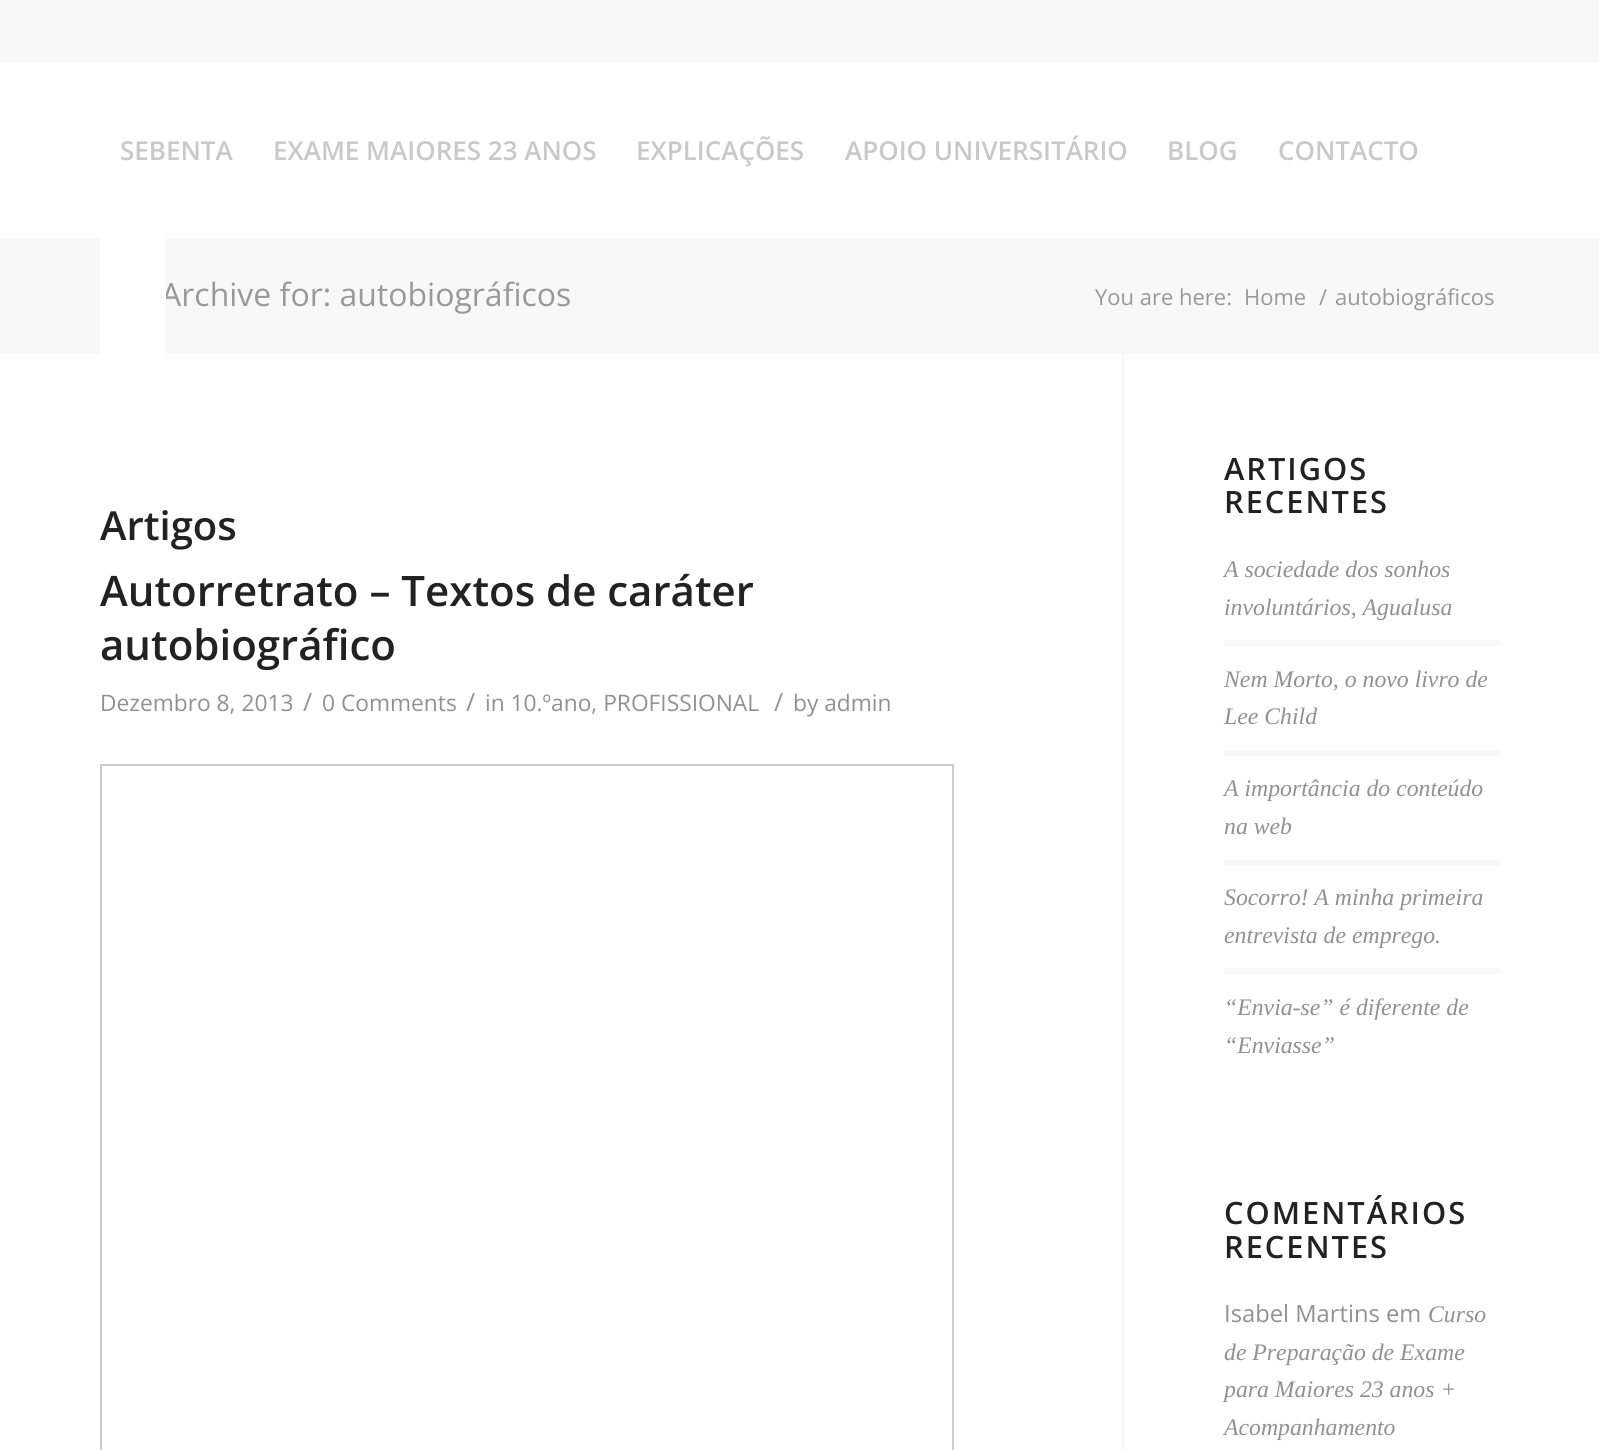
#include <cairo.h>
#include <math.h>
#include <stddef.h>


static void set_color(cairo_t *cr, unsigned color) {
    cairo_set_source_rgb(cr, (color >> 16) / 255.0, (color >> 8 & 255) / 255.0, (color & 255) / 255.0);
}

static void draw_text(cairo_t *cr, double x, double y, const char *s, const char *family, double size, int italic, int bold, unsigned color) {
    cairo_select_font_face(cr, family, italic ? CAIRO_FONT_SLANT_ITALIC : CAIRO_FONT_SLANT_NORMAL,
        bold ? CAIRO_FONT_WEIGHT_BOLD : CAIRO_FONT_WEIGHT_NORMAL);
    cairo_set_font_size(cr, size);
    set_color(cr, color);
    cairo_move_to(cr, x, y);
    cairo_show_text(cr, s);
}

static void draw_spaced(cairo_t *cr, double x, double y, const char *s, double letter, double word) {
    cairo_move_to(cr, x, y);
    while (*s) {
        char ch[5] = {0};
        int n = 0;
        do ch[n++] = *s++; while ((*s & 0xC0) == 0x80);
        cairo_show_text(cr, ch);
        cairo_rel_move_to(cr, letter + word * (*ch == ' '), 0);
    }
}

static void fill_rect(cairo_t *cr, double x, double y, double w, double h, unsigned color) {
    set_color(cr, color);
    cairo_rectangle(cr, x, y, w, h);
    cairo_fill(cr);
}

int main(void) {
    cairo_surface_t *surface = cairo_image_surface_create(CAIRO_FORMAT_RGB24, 1599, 1450);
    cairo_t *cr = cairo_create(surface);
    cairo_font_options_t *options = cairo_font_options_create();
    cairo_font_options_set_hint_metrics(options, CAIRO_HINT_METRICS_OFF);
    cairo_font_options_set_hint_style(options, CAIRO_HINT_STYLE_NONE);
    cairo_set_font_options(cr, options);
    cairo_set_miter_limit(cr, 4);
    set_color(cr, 0xFFFFFF);
    cairo_paint(cr);
    fill_rect(cr, 0, 0, 1599, 62, 0xF8F8F8);
    draw_text(cr, 120, 160, "SEBENTA", "Open Sans SemiBold", 26, 0, 0, 0xC9C9C9);
    draw_text(cr, 273, 160, "EXAME MAIORES 23 ANOS", "Open Sans SemiBold", 26, 0, 0, 0xC9C9C9);
    draw_text(cr, 636, 160, "EXPLICAÇÕES", "Open Sans SemiBold", 26, 0, 0, 0xC9C9C9);
    draw_text(cr, 845, 160, "APOIO UNIVERSITÁRIO", "Open Sans SemiBold", 26, 0, 0, 0xC9C9C9);
    draw_text(cr, 1167, 160, "BLOG", "Open Sans SemiBold", 26, 0, 0, 0xC9C9C9);
    draw_text(cr, 1278, 160, "CONTACTO", "Open Sans SemiBold", 26, 0, 0, 0xC9C9C9);
    fill_rect(cr, 0, 238, 1599, 116, 0xF8F8F8);
    draw_text(cr, 161, 306, "Archive for: autobiográficos", "Open Sans", 32, 0, 0, 0x999999);
    fill_rect(cr, 100, 238, 66, 116, 0xFFFFFF);
    draw_text(cr, 1095, 305, "You are here:", "Open Sans", 22, 0, 0, 0x999999);
    draw_text(cr, 1244, 305, "Home", "Open Sans", 22, 0, 0, 0x999999);
    draw_text(cr, 1319, 305, "/", "Open Sans", 22, 0, 0, 0x999999);
    draw_text(cr, 1335, 305, "autobiográficos", "Open Sans", 22, 0, 0, 0x999999);
    fill_rect(cr, 1122, 354, 2, 1096, 0xF8F8F8);
    draw_text(cr, 100, 540, "Artigos", "Open Sans SemiBold", 40, 0, 0, 0x222222);
    draw_text(cr, 100, 606, "Autorretrato – Textos de caráter", "Open Sans SemiBold", 42, 0, 0, 0x222222);
    draw_text(cr, 100, 660, "autobiográfico", "Open Sans SemiBold", 42, 0, 0, 0x222222);
    draw_text(cr, 100, 711, "Dezembro 8, 2013", "Open Sans", 22.75, 0, 0, 0x919191);
    draw_text(cr, 303, 711, "/", "Open Sans", 25, 0, 0, 0x919191);
    draw_text(cr, 322, 711, "0 Comments", "Open Sans", 22.75, 0, 0, 0x919191);
    draw_text(cr, 466, 711, "/", "Open Sans", 25, 0, 0, 0x919191);
    draw_text(cr, 485, 711, "in 10.ºano, PROFISSIONAL", "Open Sans", 22.75, 0, 0, 0x919191);
    draw_text(cr, 774, 711, "/", "Open Sans", 25, 0, 0, 0x919191);
    draw_text(cr, 793, 711, "by admin", "Open Sans", 22.75, 0, 0, 0x919191);
    fill_rect(cr, 100, 764, 854, 2, 0xCCCCCC);
    fill_rect(cr, 100, 764, 2, 686, 0xCCCCCC);
    fill_rect(cr, 952, 764, 2, 686, 0xCCCCCC);
    cairo_select_font_face(cr, "Open Sans SemiBold", CAIRO_FONT_SLANT_NORMAL, CAIRO_FONT_WEIGHT_NORMAL);
    cairo_set_font_size(cr, 30.75);
    set_color(cr, 0x222222);
    draw_spaced(cr, 1224, 480, "ARTIGOS", 2, 0);
    draw_spaced(cr, 1224, 513, "RECENTES", 2, 0);
    draw_text(cr, 1224, 577, "A sociedade dos sonhos", "Liberation Serif", 23.75, 1, 0, 0x919191);
    draw_text(cr, 1224, 615, "involuntários, Agualusa", "Liberation Serif", 23.75, 1, 0, 0x919191);
    fill_rect(cr, 1224, 640, 276, 6, 0xF8F8F8);
    draw_text(cr, 1224, 687, "Nem Morto, o novo livro de", "Liberation Serif", 23.75, 1, 0, 0x919191);
    draw_text(cr, 1224, 724, "Lee Child", "Liberation Serif", 23.75, 1, 0, 0x919191);
    fill_rect(cr, 1224, 750, 276, 6, 0xF8F8F8);
    draw_text(cr, 1224, 796, "A importância do conteúdo", "Liberation Serif", 23.75, 1, 0, 0x919191);
    draw_text(cr, 1224, 834, "na web", "Liberation Serif", 23.75, 1, 0, 0x919191);
    fill_rect(cr, 1224, 860, 276, 6, 0xF8F8F8);
    draw_text(cr, 1224, 905, "Socorro! A minha primeira", "Liberation Serif", 23.75, 1, 0, 0x919191);
    draw_text(cr, 1224, 943, "entrevista de emprego.", "Liberation Serif", 23.75, 1, 0, 0x919191);
    fill_rect(cr, 1224, 968, 276, 6, 0xF8F8F8);
    draw_text(cr, 1224, 1015, "“Envia-se” é diferente de", "Liberation Serif", 23.75, 1, 0, 0x919191);
    draw_text(cr, 1224, 1053, "“Enviasse”", "Liberation Serif", 23.75, 1, 0, 0x919191);
    cairo_select_font_face(cr, "Open Sans SemiBold", CAIRO_FONT_SLANT_NORMAL, CAIRO_FONT_WEIGHT_NORMAL);
    cairo_set_font_size(cr, 30.75);
    set_color(cr, 0x222222);
    draw_spaced(cr, 1224, 1224, "COMENTÁRIOS", 2, 0);
    draw_spaced(cr, 1224, 1258, "RECENTES", 2, 0);
    draw_text(cr, 1224, 1322, "Isabel Martins em", "Open Sans", 23.75, 0, 0, 0x919191);
    draw_text(cr, 1428, 1322, "Curso", "Liberation Serif", 23.75, 1, 0, 0x919191);
    draw_text(cr, 1224, 1360, "de Preparação de Exame", "Liberation Serif", 23.75, 1, 0, 0x919191);
    draw_text(cr, 1224, 1397, "para Maiores 23 anos +", "Liberation Serif", 23.75, 1, 0, 0x919191);
    draw_text(cr, 1224, 1435, "Acompanhamento", "Liberation Serif", 23.75, 1, 0, 0x919191);
    cairo_surface_write_to_png(surface, "output.png");
    cairo_font_options_destroy(options);
    cairo_destroy(cr);
    cairo_surface_destroy(surface);
    return 0;
}
